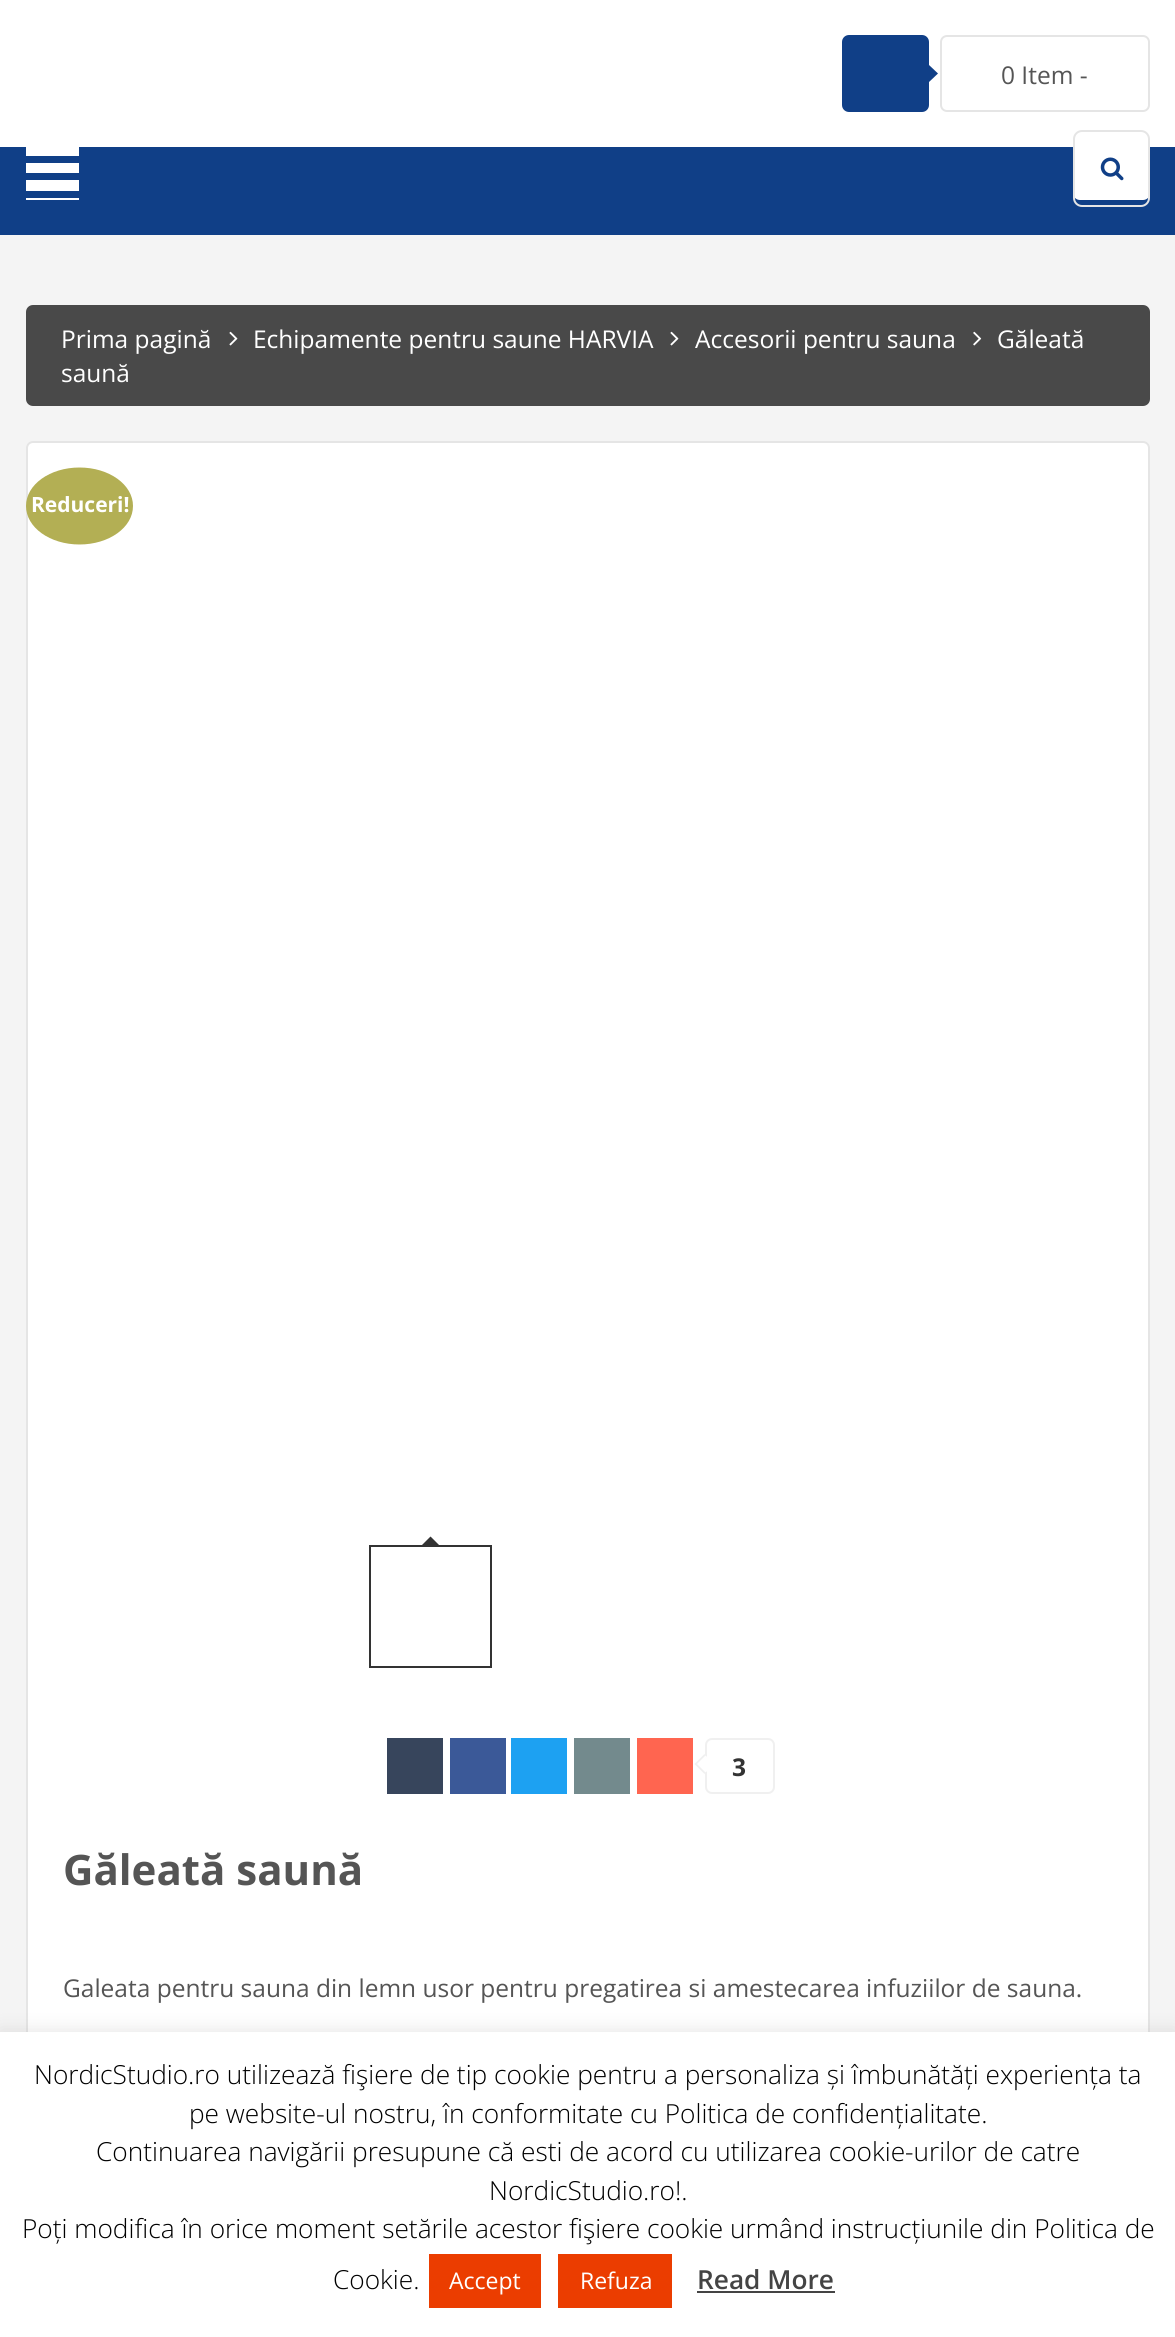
#include <cairo.h>
#include <math.h>
#include <stddef.h>


static void set_color(cairo_t *cr, unsigned color) {
    cairo_set_source_rgb(cr, (color >> 16) / 255.0, (color >> 8 & 255) / 255.0, (color & 255) / 255.0);
}

static void draw_text(cairo_t *cr, double x, double y, const char *s, const char *family, double size, int italic, int bold, unsigned color) {
    cairo_select_font_face(cr, family, italic ? CAIRO_FONT_SLANT_ITALIC : CAIRO_FONT_SLANT_NORMAL,
        bold ? CAIRO_FONT_WEIGHT_BOLD : CAIRO_FONT_WEIGHT_NORMAL);
    cairo_set_font_size(cr, size);
    set_color(cr, color);
    cairo_move_to(cr, x, y);
    cairo_show_text(cr, s);
}

static void fill_rect(cairo_t *cr, double x, double y, double w, double h, unsigned color) {
    set_color(cr, color);
    cairo_rectangle(cr, x, y, w, h);
    cairo_fill(cr);
}

static void rounded_rect(cairo_t *cr, double x, double y, double w, double h, double r) {
    cairo_new_sub_path(cr);
    cairo_arc(cr, x + w - r, y + h - r, r, 0, M_PI / 2);
    cairo_arc(cr, x + r, y + h - r, r, M_PI / 2, M_PI);
    cairo_arc(cr, x + r, y + r, r, M_PI, 1.5 * M_PI);
    cairo_arc(cr, x + w - r, y + r, r, 1.5 * M_PI, 2 * M_PI);
    cairo_close_path(cr);
}

static void draw_shadow(cairo_t *cr, double x, double y, double w, double h, double r, double blur, double alpha) {
    cairo_push_group_with_content(cr, CAIRO_CONTENT_ALPHA);
    cairo_set_operator(cr, CAIRO_OPERATOR_SOURCE);
    for (int i = 15; i >= -15 && fmin(w, h) + blur * i / 3 > 0; i -= 2) {
        double e = blur * i / 6;
        cairo_set_source_rgba(cr, 0, 0, 0, alpha * erfc((i - 1) / 8.5) / 2);
        rounded_rect(cr, x - e, y - e, w + 2 * e, h + 2 * e, fmax(0, fmin(r + e + blur * .6, fmin(w, h) / 2 + e)));
        cairo_fill(cr);
    }
    cairo_pattern_t *soft = cairo_pop_group(cr);
    cairo_mask(cr, soft);
    cairo_pattern_destroy(soft);
}

static void draw_image(cairo_t *cr, const char *path, double x, double y, double w, double h) {
    cairo_surface_t *image = cairo_image_surface_create_from_png(path);
    cairo_save(cr);
    cairo_set_source_surface(cr, image, x, y);
    cairo_rectangle(cr, x, y, w, h);
    cairo_fill(cr);
    cairo_restore(cr);
    cairo_surface_destroy(image);
}

int main(void) {
    cairo_surface_t *surface = cairo_image_surface_create(CAIRO_FORMAT_RGB24, 1175, 2337);
    cairo_t *cr = cairo_create(surface);
    cairo_font_options_t *options = cairo_font_options_create();
    cairo_font_options_set_hint_metrics(options, CAIRO_HINT_METRICS_OFF);
    cairo_font_options_set_hint_style(options, CAIRO_HINT_STYLE_NONE);
    cairo_set_font_options(cr, options);
    cairo_set_miter_limit(cr, 4);
    set_color(cr, 0xF4F4F4);
    cairo_paint(cr);
    fill_rect(cr, 0, 0, 1175, 147, 0xFFFFFF);
    set_color(cr, 0x103F87);
    rounded_rect(cr, 842, 35, 87, 77, 7);
    cairo_fill(cr);
    cairo_new_path(cr);
    cairo_move_to(cr, 929, 82);
    cairo_line_to(cr, 929, 65);
    cairo_line_to(cr, 938, 73.5);
    cairo_close_path(cr);
    cairo_fill(cr);
    rounded_rect(cr, 941, 36, 208, 75, 6);
    set_color(cr, 0xE5E5E5);
    cairo_stroke(cr);
    draw_text(cr, 1001, 84, "0 Item -", "Open Sans", 24.5, 0, 0, 0x555555);
    fill_rect(cr, 0, 147, 1175, 88, 0x103F87);
    fill_rect(cr, 26, 147, 53, 53, 0xFFFFFF);
    fill_rect(cr, 26, 156, 53, 7, 0x103F87);
    fill_rect(cr, 26, 173, 53, 7, 0x103F87);
    fill_rect(cr, 26, 191, 53, 7, 0x103F87);
    set_color(cr, 0xFFFFFF);
    rounded_rect(cr, 1073, 130, 77, 70, 7);
    cairo_fill(cr);
    draw_image(cr, "assets/img1.png", 1100, 157, 24, 24);
    rounded_rect(cr, 1074, 131, 75, 75, 8);
    set_color(cr, 0xE5E5E5);
    cairo_stroke(cr);
    set_color(cr, 0x494949);
    rounded_rect(cr, 26, 305, 1124, 101, 7);
    cairo_fill(cr);
    draw_text(cr, 61, 348, "Prima pagină", "Open Sans", 24.5, 0, 0, 0xFFFFFF);
    draw_image(cr, "assets/img2.png", 229, 331, 9, 15);
    draw_text(cr, 253, 348, "Echipamente pentru saune HARVIA", "Open Sans", 24.5, 0, 0, 0xFFFFFF);
    draw_image(cr, "assets/img2.png", 670, 331, 9, 15);
    draw_text(cr, 695, 348, "Accesorii pentru sauna", "Open Sans", 24.5, 0, 0, 0xFFFFFF);
    draw_image(cr, "assets/img3.png", 973, 331, 9, 15);
    draw_text(cr, 997, 348, "Găleată", "Open Sans", 24.5, 0, 0, 0xFFFFFF);
    draw_text(cr, 61, 382, "saună", "Open Sans", 24.5, 0, 0, 0xFFFFFF);
    rounded_rect(cr, 27, 442, 1122, 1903, 6);
    cairo_fill_preserve(cr);
    set_color(cr, 0xE5E5E5);
    cairo_stroke(cr);
    set_color(cr, 0xB3AF54);
    cairo_new_path(cr);
    cairo_move_to(cr, 79.5, 467.5);
    cairo_curve_to(cr, 109, 467.5, 133, 484.5, 133, 506);
    cairo_curve_to(cr, 133, 527.5, 109, 544.5, 79.5, 544.5);
    cairo_curve_to(cr, 50, 544.5, 26, 527.5, 26, 506);
    cairo_curve_to(cr, 26, 484.5, 50, 467.5, 79.5, 467.5);
    cairo_close_path(cr);
    cairo_fill(cr);
    draw_text(cr, 31, 512, "Reduceri!", "Open Sans", 21, 0, 1, 0xFFFFFF);
    cairo_rectangle(cr, 370, 1546, 121, 121);
    set_color(cr, 0x333333);
    cairo_stroke(cr);
    cairo_new_path(cr);
    cairo_move_to(cr, 439, 1545);
    cairo_line_to(cr, 422, 1545);
    cairo_line_to(cr, 430.5, 1536.5);
    cairo_close_path(cr);
    cairo_fill(cr);
    fill_rect(cr, 387, 1738, 56, 56, 0x37455C);
    fill_rect(cr, 450, 1738, 56, 56, 0x3B5998);
    fill_rect(cr, 511, 1738, 56, 56, 0x1DA1F2);
    fill_rect(cr, 574, 1738, 56, 56, 0x738A8D);
    fill_rect(cr, 637, 1738, 56, 56, 0xFF6550);
    rounded_rect(cr, 706, 1739, 68, 54, 6);
    set_color(cr, 0xF0F0F0);
    cairo_stroke(cr);
    set_color(cr, 0xFFFFFF);
    cairo_new_path(cr);
    cairo_move_to(cr, 705.5, 1755.5);
    cairo_line_to(cr, 714.5, 1764);
    cairo_line_to(cr, 705.5, 1772.5);
    cairo_line_to(cr, 697, 1764);
    cairo_close_path(cr);
    cairo_fill(cr);
    set_color(cr, 0xF0F0F0);
    cairo_new_path(cr);
    cairo_move_to(cr, 696, 1763);
    cairo_line_to(cr, 705.5, 1772.5);
    cairo_line_to(cr, 704.5, 1774);
    cairo_line_to(cr, 694.5, 1764);
    cairo_close_path(cr);
    cairo_fill(cr);
    cairo_new_path(cr);
    cairo_move_to(cr, 704.5, 1754);
    cairo_line_to(cr, 705.5, 1755.5);
    cairo_line_to(cr, 696, 1765);
    cairo_line_to(cr, 694.5, 1764);
    cairo_close_path(cr);
    cairo_fill(cr);
    draw_text(cr, 732, 1776, "3", "Open Sans", 24.5, 0, 1, 0x333333);
    draw_text(cr, 63, 1885, "Găleată saună", "Open Sans", 42, 0, 1, 0x555555);
    draw_text(cr, 63, 1997, "Galeata pentru sauna din lemn usor pentru pregatirea si amestecarea infuziilor de sauna.", "Open Sans", 24.5, 0, 0, 0x555555);
    set_color(cr, 0xACABAB);
    draw_shadow(cr, 0, 2030, 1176, 306, 0, 9, 0.3);
    fill_rect(cr, 0, 2032, 1175, 305, 0xFFFFFF);
    draw_text(cr, 34, 2084, "NordicStudio.ro utilizează fişiere de tip cookie pentru a personaliza și îmbunătăți experiența ta", "Open Sans Light", 26.25, 0, 0, 0x000000);
    draw_text(cr, 189, 2123, "pe website-ul nostru, în conformitate cu Politica de confidențialitate.", "Open Sans Light", 26.25, 0, 0, 0x000000);
    draw_text(cr, 96, 2161, "Continuarea navigării presupune că esti de acord cu utilizarea cookie-urilor de catre", "Open Sans Light", 26.25, 0, 0, 0x000000);
    draw_text(cr, 489, 2200, "NordicStudio.ro!.", "Open Sans Light", 26.25, 0, 0, 0x000000);
    draw_text(cr, 22, 2238, "Poți modifica în orice moment setările acestor fişiere cookie urmând instrucțiunile din Politica de", "Open Sans Light", 26.25, 0, 0, 0x000000);
    draw_text(cr, 333, 2289, "Cookie.", "Open Sans Light", 26.25, 0, 0, 0x000000);
    fill_rect(cr, 429, 2254, 112, 54, 0xEB3D00);
    draw_text(cr, 449, 2289, "Accept", "Open Sans", 23, 0, 0, 0xFFFFFF);
    fill_rect(cr, 558, 2254, 114, 54, 0xEB3D00);
    draw_text(cr, 580, 2289, "Refuza", "Open Sans", 23, 0, 0, 0xFFFFFF);
    draw_text(cr, 697, 2289, "Read More", "Open Sans SemiBold", 26.25, 0, 0, 0x444444);
    fill_rect(cr, 697, 2291, 138, 2, 0x444444);
    cairo_surface_write_to_png(surface, "output.png");
    cairo_font_options_destroy(options);
    cairo_destroy(cr);
    cairo_surface_destroy(surface);
    return 0;
}
